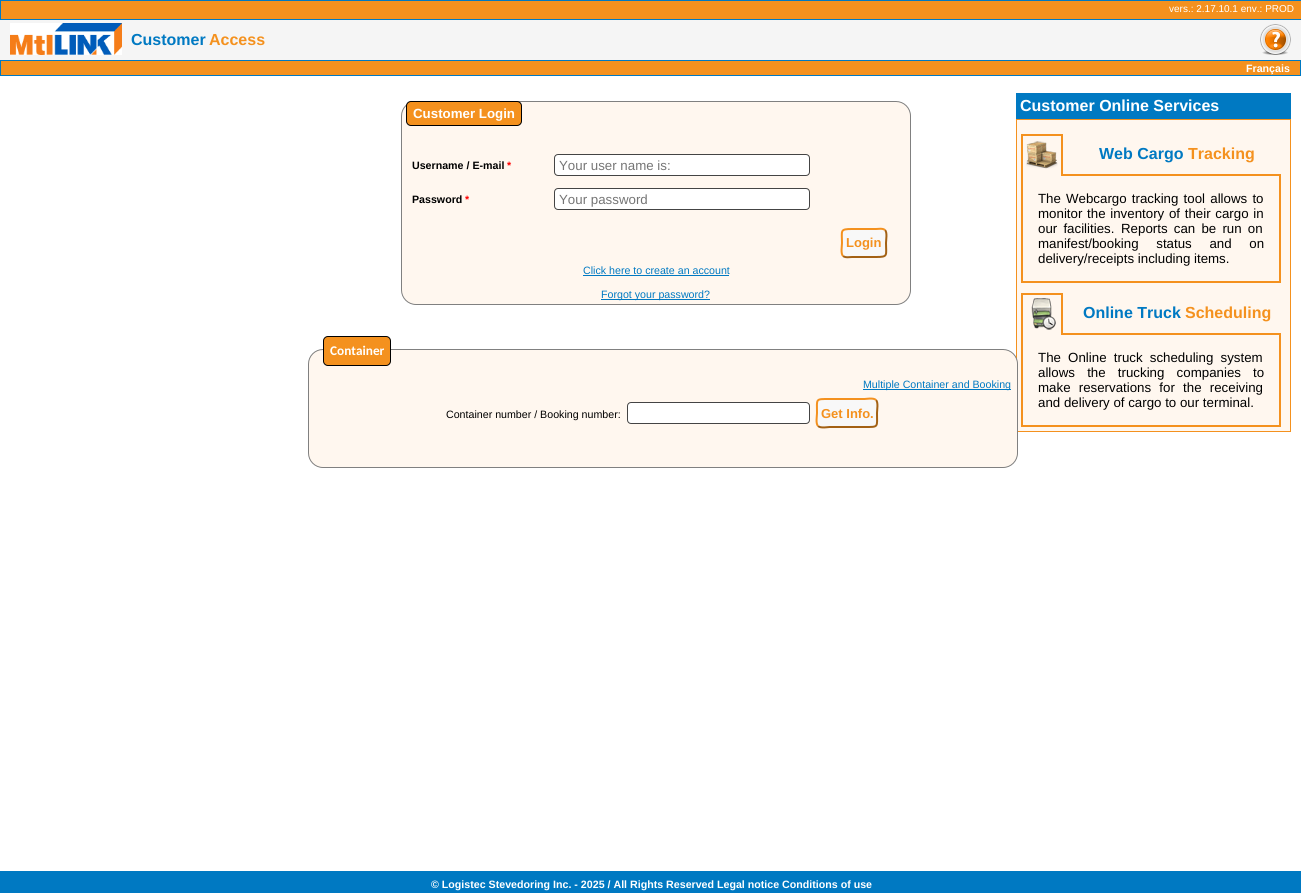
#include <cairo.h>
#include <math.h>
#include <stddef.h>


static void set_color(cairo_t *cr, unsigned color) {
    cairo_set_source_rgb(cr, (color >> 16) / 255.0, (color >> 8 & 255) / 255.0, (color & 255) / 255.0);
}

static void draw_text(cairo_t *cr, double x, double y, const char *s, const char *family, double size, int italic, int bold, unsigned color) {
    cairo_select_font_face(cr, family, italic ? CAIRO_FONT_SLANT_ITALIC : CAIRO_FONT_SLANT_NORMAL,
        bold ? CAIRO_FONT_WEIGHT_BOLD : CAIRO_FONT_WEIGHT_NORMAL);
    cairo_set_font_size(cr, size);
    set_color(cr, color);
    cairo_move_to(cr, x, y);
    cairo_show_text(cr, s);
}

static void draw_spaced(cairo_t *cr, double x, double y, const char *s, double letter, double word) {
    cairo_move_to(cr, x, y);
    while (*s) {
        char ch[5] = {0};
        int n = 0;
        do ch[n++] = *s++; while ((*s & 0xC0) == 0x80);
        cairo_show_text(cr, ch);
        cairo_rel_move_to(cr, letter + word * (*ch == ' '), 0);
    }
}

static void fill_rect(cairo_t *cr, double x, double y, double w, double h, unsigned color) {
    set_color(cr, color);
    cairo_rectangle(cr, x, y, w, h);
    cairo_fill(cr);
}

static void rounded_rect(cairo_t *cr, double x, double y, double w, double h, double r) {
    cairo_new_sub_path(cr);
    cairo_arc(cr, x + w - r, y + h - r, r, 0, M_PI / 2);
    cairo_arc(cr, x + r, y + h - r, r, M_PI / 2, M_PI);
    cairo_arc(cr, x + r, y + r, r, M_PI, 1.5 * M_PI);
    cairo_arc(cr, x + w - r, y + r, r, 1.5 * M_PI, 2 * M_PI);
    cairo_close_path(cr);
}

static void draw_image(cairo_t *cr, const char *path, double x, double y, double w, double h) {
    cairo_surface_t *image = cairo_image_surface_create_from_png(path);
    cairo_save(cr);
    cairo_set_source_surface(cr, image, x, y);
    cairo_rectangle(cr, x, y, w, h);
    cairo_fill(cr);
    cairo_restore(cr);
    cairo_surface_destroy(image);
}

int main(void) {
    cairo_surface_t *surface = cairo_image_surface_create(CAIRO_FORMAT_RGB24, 1301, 893);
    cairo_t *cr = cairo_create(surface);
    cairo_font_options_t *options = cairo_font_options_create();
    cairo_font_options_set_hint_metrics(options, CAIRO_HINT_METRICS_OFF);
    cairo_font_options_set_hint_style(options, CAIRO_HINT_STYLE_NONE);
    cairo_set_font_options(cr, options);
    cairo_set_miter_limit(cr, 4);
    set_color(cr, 0xFFFFFF);
    cairo_paint(cr);
    set_color(cr, 0xF4911E);
    cairo_rectangle(cr, 0.5, 0.5, 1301, 19);
    cairo_fill_preserve(cr);
    set_color(cr, 0x0079C2);
    cairo_set_line_width(cr, 1);
    cairo_stroke(cr);
    draw_text(cr, 1169, 12, "vers.: 2.17.10.1 env.: PROD", "Liberation Sans", 10, 0, 0, 0xFFFFFF);
    fill_rect(cr, 0, 20, 1301, 40, 0xF5F5F5);
    draw_image(cr, "assets/img1.png", 10, 23, 112, 32);
    draw_text(cr, 131, 45, "Customer", "Liberation Sans", 16, 0, 1, 0x0079C2);
    draw_text(cr, 209, 45, "Access", "Liberation Sans", 16, 0, 1, 0xF4911E);
    cairo_rectangle(cr, 0.5, 60.5, 1300, 15);
    cairo_fill_preserve(cr);
    set_color(cr, 0x0079C2);
    cairo_stroke(cr);
    draw_text(cr, 1246, 72, "Français", "Liberation Sans", 10.65, 0, 1, 0xFFFFFF);
    draw_image(cr, "assets/img2.png", 1260, 24, 31, 31);
    draw_image(cr, "assets/img3.png", 1260, 24, 31, 31);
    fill_rect(cr, 1016, 93, 275, 26, 0x0079C2);
    draw_text(cr, 1020, 111, "Customer Online Services", "Liberation Sans", 16, 0, 1, 0xFFFFFF);
    set_color(cr, 0xFFF7EF);
    rounded_rect(cr, 401.5, 101.5, 509, 203, 14.5);
    cairo_fill_preserve(cr);
    set_color(cr, 0x808080);
    cairo_stroke(cr);
    set_color(cr, 0xF4911E);
    rounded_rect(cr, 406.5, 101.5, 115, 24, 4.5);
    cairo_fill_preserve(cr);
    set_color(cr, 0x000000);
    cairo_stroke(cr);
    draw_text(cr, 413, 118, "Customer Login", "Liberation Sans", 13.3, 0, 1, 0xFFFFFF);
    draw_text(cr, 412, 169, "Username / E-mail", "Liberation Sans", 10.65, 0, 1, 0x000000);
    draw_text(cr, 507, 169, "*", "Liberation Sans", 10.65, 0, 1, 0xFF0000);
    set_color(cr, 0xFFFFFF);
    rounded_rect(cr, 554.5, 154.5, 255, 21, 3.5);
    cairo_fill_preserve(cr);
    set_color(cr, 0x444444);
    cairo_stroke(cr);
    draw_text(cr, 559, 170, "Your user name is:", "Liberation Sans", 13.3, 0, 0, 0x757575);
    draw_text(cr, 412, 203, "Password", "Liberation Sans", 10.65, 0, 1, 0x000000);
    draw_text(cr, 465, 203, "*", "Liberation Sans", 10.65, 0, 1, 0xFF0000);
    set_color(cr, 0xFFFFFF);
    rounded_rect(cr, 554.5, 188.5, 255, 21, 3.5);
    cairo_fill_preserve(cr);
    set_color(cr, 0x444444);
    cairo_stroke(cr);
    draw_text(cr, 559, 204, "Your password", "Liberation Sans", 13.3, 0, 0, 0x757575);
    set_color(cr, 0xF8F8F8);
    rounded_rect(cr, 841, 228, 46, 30, 5);
    cairo_fill(cr);
    cairo_new_path(cr);
    cairo_move_to(cr, 885, 230);
    cairo_curve_to(cr, 887.5, 232.5, 886, 240, 886, 243);
    cairo_curve_to(cr, 886, 255.5, 888.5, 257, 876, 257);
    cairo_line_to(cr, 852, 257);
    cairo_curve_to(cr, 850, 257, 845.5, 258, 843, 256);
    set_color(cr, 0xA36114);
    cairo_set_line_width(cr, 2);
    cairo_stroke(cr);
    cairo_new_path(cr);
    cairo_move_to(cr, 843, 256);
    cairo_curve_to(cr, 840.5, 253.5, 842, 246, 842, 243);
    cairo_curve_to(cr, 842, 230.5, 839.5, 229, 852, 229);
    cairo_line_to(cr, 876, 229);
    cairo_curve_to(cr, 878, 229, 882.5, 228, 885, 230);
    set_color(cr, 0xF4911E);
    cairo_stroke(cr);
    draw_text(cr, 846, 247, "Login", "Liberation Sans", 13, 0, 1, 0xF4911E);
    draw_text(cr, 583, 274, "Click here to create an account", "Liberation Sans", 10.65, 0, 0, 0x0079C2);
    fill_rect(cr, 583, 275, 146, 1, 0x0079C2);
    fill_rect(cr, 601, 299, 109, 1, 0x0079C2);
    draw_text(cr, 601, 298, "Forgot your password?", "Liberation Sans", 10.65, 0, 0, 0x0079C2);
    set_color(cr, 0xFFF7EF);
    cairo_rectangle(cr, 1016.5, 119.5, 274, 312);
    cairo_fill_preserve(cr);
    set_color(cr, 0xF4911E);
    cairo_set_line_width(cr, 1);
    cairo_stroke(cr);
    fill_rect(cr, 1021, 134, 42, 2, 0xF4911E);
    fill_rect(cr, 1061, 134, 2, 42, 0xF4911E);
    fill_rect(cr, 1021, 134, 2, 42, 0xF4911E);
    draw_image(cr, "assets/img4.png", 1026, 141, 32, 28);
    fill_rect(cr, 1063, 174, 218, 2, 0xF4911E);
    draw_text(cr, 1099, 159, "Web Cargo", "Liberation Sans", 16, 0, 1, 0x0079C2);
    draw_text(cr, 1188, 159, "Tracking", "Liberation Sans", 16, 0, 1, 0xF4911E);
    fill_rect(cr, 1279, 176, 2, 107, 0xF4911E);
    fill_rect(cr, 1021, 281, 260, 2, 0xF4911E);
    fill_rect(cr, 1021, 176, 2, 107, 0xF4911E);
    draw_text(cr, 1038, 203, "The", "Liberation Sans", 13.3, 0, 0, 0x000000);
    draw_spaced(cr, 1066, 203, "Webcargo tracking tool allows to", 0, 1.5);
    draw_spaced(cr, 1038, 218, "monitor the inventory of their cargo in", 0, 1);
    draw_spaced(cr, 1038, 233, "our facilities.", 0, 2.5);
    draw_spaced(cr, 1121, 233, "Reports can be run on", 0, 2.5);
    draw_spaced(cr, 1038, 248, "manifest/booking status and on", 0, 14);
    draw_text(cr, 1038, 263, "delivery/receipts including items.", "Liberation Sans", 13.3, 0, 0, 0x000000);
    fill_rect(cr, 1021, 293, 42, 2, 0xF4911E);
    fill_rect(cr, 1061, 293, 2, 42, 0xF4911E);
    fill_rect(cr, 1021, 293, 2, 42, 0xF4911E);
    draw_image(cr, "assets/img5.png", 1031, 298, 25, 32);
    fill_rect(cr, 1063, 333, 218, 2, 0xF4911E);
    draw_text(cr, 1083, 318, "Online Truck", "Liberation Sans", 16, 0, 1, 0x0079C2);
    draw_text(cr, 1185, 318, "Scheduling", "Liberation Sans", 16, 0, 1, 0xF4911E);
    fill_rect(cr, 1279, 335, 2, 92, 0xF4911E);
    fill_rect(cr, 1021, 425, 260, 2, 0xF4911E);
    fill_rect(cr, 1021, 335, 2, 92, 0xF4911E);
    cairo_select_font_face(cr, "Liberation Sans", CAIRO_FONT_SLANT_NORMAL, CAIRO_FONT_WEIGHT_NORMAL);
    cairo_set_font_size(cr, 13.3);
    set_color(cr, 0x000000);
    draw_spaced(cr, 1038, 362, "The Online truck scheduling system", 0, 3.5);
    draw_spaced(cr, 1038, 377, "allows the trucking companies to", 0, 8.5);
    draw_spaced(cr, 1038, 392, "make reservations for the receiving", 0, 4.5);
    draw_text(cr, 1038, 407, "and delivery of cargo to our terminal.", "Liberation Sans", 13.3, 0, 0, 0x000000);
    set_color(cr, 0xFFF7EF);
    rounded_rect(cr, 308.5, 349.5, 709, 118, 14.5);
    cairo_fill_preserve(cr);
    set_color(cr, 0x808080);
    cairo_stroke(cr);
    set_color(cr, 0xF4911E);
    rounded_rect(cr, 323.5, 336.5, 67, 29, 4.5);
    cairo_fill_preserve(cr);
    set_color(cr, 0x000000);
    cairo_stroke(cr);
    draw_text(cr, 330, 355, "Container", "Carlito", 13.3, 0, 1, 0xFFFFFF);
    fill_rect(cr, 863, 389, 148, 1, 0x0079C2);
    draw_text(cr, 863, 388, "Multiple Container and Booking", "Liberation Sans", 10.65, 0, 0, 0x0079C2);
    draw_text(cr, 446, 418, "Container number / Booking number:", "Liberation Sans", 10.65, 0, 0, 0x000000);
    set_color(cr, 0xFFFFFF);
    rounded_rect(cr, 627.5, 402.5, 182, 21, 3.5);
    cairo_fill_preserve(cr);
    set_color(cr, 0x444444);
    cairo_stroke(cr);
    set_color(cr, 0xF8F8F8);
    rounded_rect(cr, 816, 398, 62, 30, 5);
    cairo_fill(cr);
    cairo_new_path(cr);
    cairo_move_to(cr, 876, 400);
    cairo_curve_to(cr, 878.5, 402.5, 877, 410, 877, 413);
    cairo_curve_to(cr, 877, 427.5, 879, 427, 864.5, 427);
    cairo_line_to(cr, 829.5, 427);
    cairo_curve_to(cr, 828, 427, 820.5, 428.5, 818, 426);
    set_color(cr, 0xA36114);
    cairo_set_line_width(cr, 2);
    cairo_stroke(cr);
    cairo_new_path(cr);
    cairo_move_to(cr, 818, 426);
    cairo_curve_to(cr, 815.5, 423.5, 817, 416, 817, 413);
    cairo_curve_to(cr, 817, 398.5, 815, 399, 829.5, 399);
    cairo_line_to(cr, 864.5, 399);
    cairo_curve_to(cr, 866, 399, 873.5, 397.5, 876, 400);
    set_color(cr, 0xF4911E);
    cairo_stroke(cr);
    draw_text(cr, 821, 418, "Get Info.", "Liberation Sans", 13, 0, 1, 0xF4911E);
    fill_rect(cr, 0, 871, 1301, 22, 0x0079C2);
    draw_text(cr, 431, 888, "© Logistec Stevedoring Inc. - 2025 / All Rights Reserved Legal notice Conditions of use", "Liberation Sans", 10.65, 0, 1, 0xFFFFFF);
    cairo_surface_write_to_png(surface, "output.png");
    cairo_font_options_destroy(options);
    cairo_destroy(cr);
    cairo_surface_destroy(surface);
    return 0;
}
